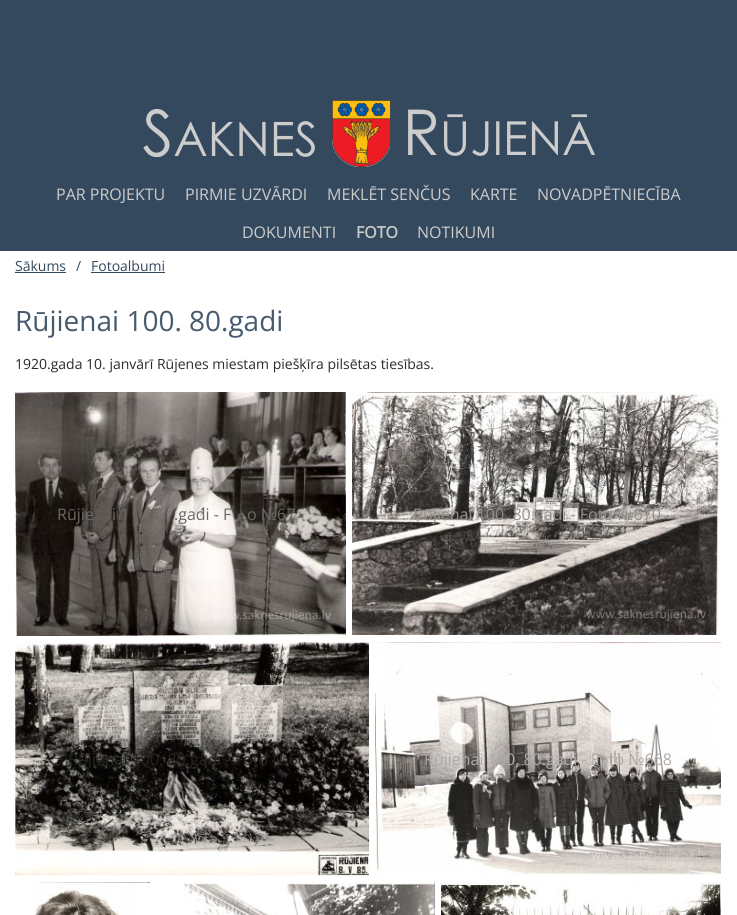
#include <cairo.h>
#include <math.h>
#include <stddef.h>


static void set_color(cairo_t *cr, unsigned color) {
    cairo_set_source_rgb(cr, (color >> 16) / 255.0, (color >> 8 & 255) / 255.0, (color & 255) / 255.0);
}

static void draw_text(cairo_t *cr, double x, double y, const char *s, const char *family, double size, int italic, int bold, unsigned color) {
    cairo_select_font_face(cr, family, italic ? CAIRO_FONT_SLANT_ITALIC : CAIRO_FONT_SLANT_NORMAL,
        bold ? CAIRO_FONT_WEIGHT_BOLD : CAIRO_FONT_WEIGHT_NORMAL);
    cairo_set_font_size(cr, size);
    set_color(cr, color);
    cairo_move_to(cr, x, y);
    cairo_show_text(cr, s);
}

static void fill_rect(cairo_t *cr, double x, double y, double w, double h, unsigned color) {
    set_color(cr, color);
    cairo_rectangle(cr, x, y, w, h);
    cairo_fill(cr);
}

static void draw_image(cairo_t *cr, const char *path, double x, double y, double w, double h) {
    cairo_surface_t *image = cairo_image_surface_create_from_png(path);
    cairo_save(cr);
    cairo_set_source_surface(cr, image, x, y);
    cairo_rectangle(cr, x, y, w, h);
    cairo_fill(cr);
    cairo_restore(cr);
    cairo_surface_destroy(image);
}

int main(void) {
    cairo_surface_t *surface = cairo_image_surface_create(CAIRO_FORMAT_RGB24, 737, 915);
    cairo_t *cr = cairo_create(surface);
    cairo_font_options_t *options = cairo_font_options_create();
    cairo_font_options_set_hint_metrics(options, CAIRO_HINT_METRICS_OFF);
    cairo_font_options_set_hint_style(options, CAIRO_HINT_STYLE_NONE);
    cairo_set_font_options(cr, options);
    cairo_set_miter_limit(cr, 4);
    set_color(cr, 0xFFFFFF);
    cairo_paint(cr);
    fill_rect(cr, 0, 0, 737, 251, 0x34495E);
    draw_image(cr, "assets/img1.png", 143, 100, 452, 67);
    draw_text(cr, 56, 200, "PAR PROJEKTU", "Open Sans", 16, 0, 0, 0xCCCCCC);
    draw_text(cr, 185, 200, "PIRMIE UZVĀRDI", "Open Sans", 16, 0, 0, 0xCCCCCC);
    draw_text(cr, 327, 200, "MEKLĒT SENČUS", "Open Sans", 16, 0, 0, 0xCCCCCC);
    draw_text(cr, 470, 200, "KARTE", "Open Sans", 16, 0, 0, 0xCCCCCC);
    draw_text(cr, 537, 200, "NOVADPĒTNIECĪBA", "Open Sans", 16, 0, 0, 0xCCCCCC);
    draw_text(cr, 242, 238, "DOKUMENTI", "Open Sans", 16, 0, 0, 0xCCCCCC);
    draw_text(cr, 356, 238, "FOTO", "Open Sans", 16, 0, 1, 0xCCCCCC);
    draw_text(cr, 417, 238, "NOTIKUMI", "Open Sans", 16, 0, 0, 0xCCCCCC);
    draw_text(cr, 15, 271, "Sākums", "Open Sans", 14, 0, 0, 0x34495E);
    fill_rect(cr, 15, 272, 51, 1, 0x34495E);
    draw_text(cr, 76, 271, "/", "Open Sans", 14, 0, 0, 0x34495E);
    draw_text(cr, 91, 271, "Fotoalbumi", "Open Sans", 14, 0, 0, 0x34495E);
    fill_rect(cr, 91, 272, 74, 1, 0x34495E);
    draw_text(cr, 15, 331, "Rūjienai 100. 80.gadi", "Open Sans", 28, 0, 0, 0x475A6E);
    draw_text(cr, 15, 369, "1920.gada 10. janvārī Rūjenes miestam piešķīra pilsētas tiesības.", "Open Sans", 14, 0, 0, 0x2B2B2B);
    draw_image(cr, "assets/img2.png", 15, 392, 331, 244);
    draw_text(cr, 57, 520, "Rūjie", "Open Sans", 16, 0, 0, 0x6D6864);
    draw_text(cr, 112, 520, "i 1", "Open Sans", 16, 0, 0, 0x6D6864);
    draw_text(cr, 174, 520, ".gadi - F", "Open Sans", 16, 0, 0, 0x6D6864);
    draw_text(cr, 247, 520, "o №67", "Open Sans", 16, 0, 0, 0x6D6864);
    draw_image(cr, "assets/img3.png", 352, 392, 369, 243);
    draw_text(cr, 413, 520, "Rūjienai 100. 80.gadi - Foto №670", "Open Sans", 16, 0, 0, 0x938F8B);
    draw_image(cr, "assets/img4.png", 15, 642, 354, 234);
    draw_text(cr, 68, 765, "Rūjienai 100. 80.gadi - Foto №669", "Open Sans", 16, 0, 0, 0x262422);
    draw_image(cr, "assets/img5.png", 375, 642, 346, 233);
    draw_text(cr, 424, 765, "Rūjienai 100. 80.gadi - Foto №668", "Open Sans", 16, 0, 0, 0xAEA9A6);
    draw_image(cr, "assets/img6.png", 34, 882, 116, 33);
    draw_image(cr, "assets/img7.png", 183, 882, 252, 33);
    draw_image(cr, "assets/img8.png", 441, 882, 280, 33);
    cairo_surface_write_to_png(surface, "output.png");
    cairo_font_options_destroy(options);
    cairo_destroy(cr);
    cairo_surface_destroy(surface);
    return 0;
}
